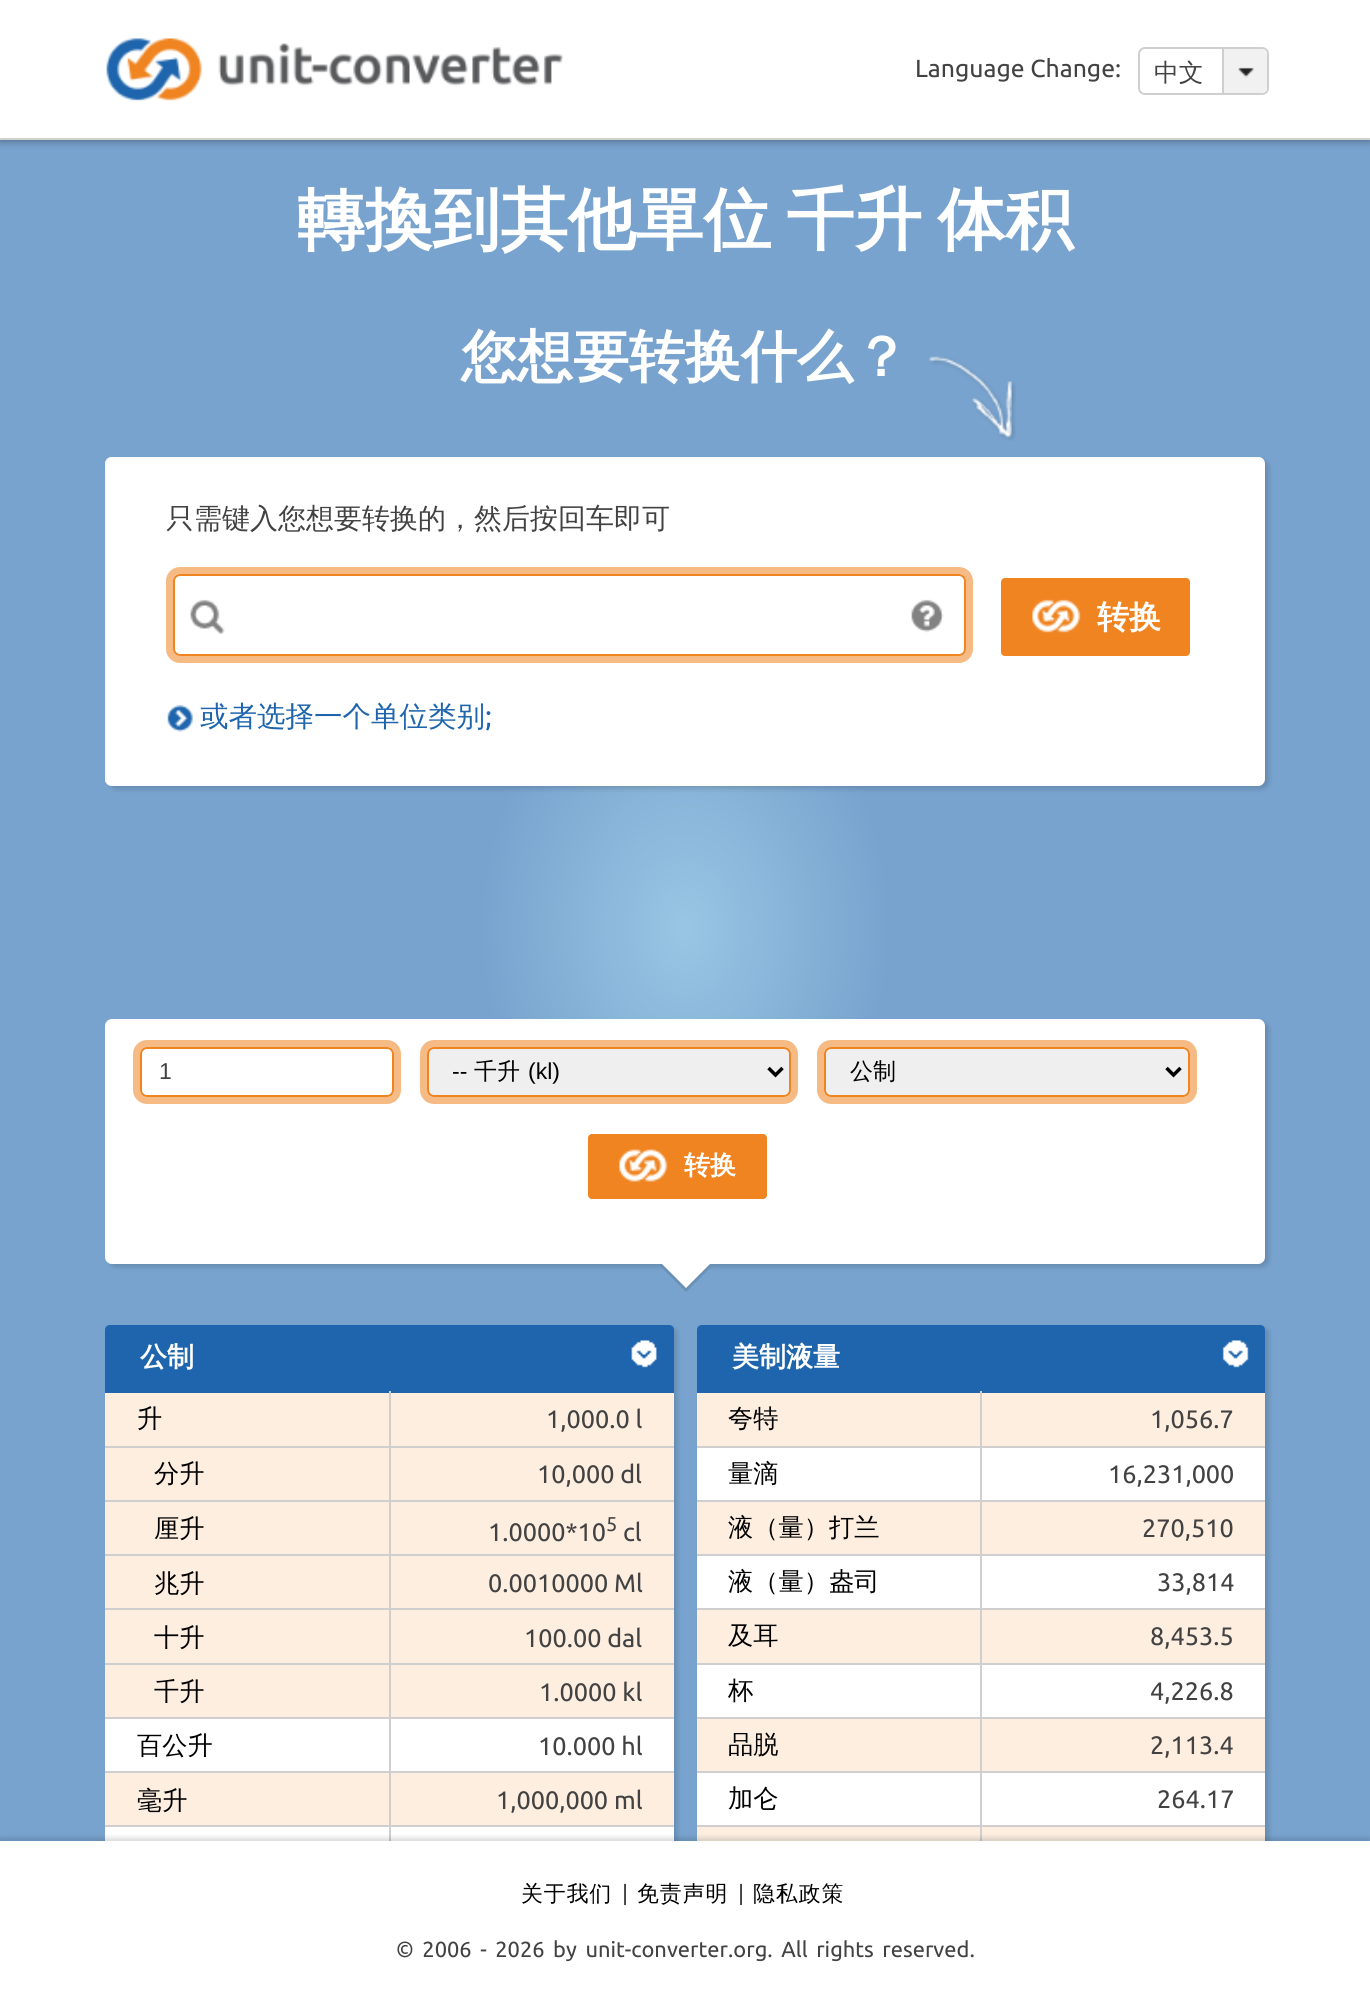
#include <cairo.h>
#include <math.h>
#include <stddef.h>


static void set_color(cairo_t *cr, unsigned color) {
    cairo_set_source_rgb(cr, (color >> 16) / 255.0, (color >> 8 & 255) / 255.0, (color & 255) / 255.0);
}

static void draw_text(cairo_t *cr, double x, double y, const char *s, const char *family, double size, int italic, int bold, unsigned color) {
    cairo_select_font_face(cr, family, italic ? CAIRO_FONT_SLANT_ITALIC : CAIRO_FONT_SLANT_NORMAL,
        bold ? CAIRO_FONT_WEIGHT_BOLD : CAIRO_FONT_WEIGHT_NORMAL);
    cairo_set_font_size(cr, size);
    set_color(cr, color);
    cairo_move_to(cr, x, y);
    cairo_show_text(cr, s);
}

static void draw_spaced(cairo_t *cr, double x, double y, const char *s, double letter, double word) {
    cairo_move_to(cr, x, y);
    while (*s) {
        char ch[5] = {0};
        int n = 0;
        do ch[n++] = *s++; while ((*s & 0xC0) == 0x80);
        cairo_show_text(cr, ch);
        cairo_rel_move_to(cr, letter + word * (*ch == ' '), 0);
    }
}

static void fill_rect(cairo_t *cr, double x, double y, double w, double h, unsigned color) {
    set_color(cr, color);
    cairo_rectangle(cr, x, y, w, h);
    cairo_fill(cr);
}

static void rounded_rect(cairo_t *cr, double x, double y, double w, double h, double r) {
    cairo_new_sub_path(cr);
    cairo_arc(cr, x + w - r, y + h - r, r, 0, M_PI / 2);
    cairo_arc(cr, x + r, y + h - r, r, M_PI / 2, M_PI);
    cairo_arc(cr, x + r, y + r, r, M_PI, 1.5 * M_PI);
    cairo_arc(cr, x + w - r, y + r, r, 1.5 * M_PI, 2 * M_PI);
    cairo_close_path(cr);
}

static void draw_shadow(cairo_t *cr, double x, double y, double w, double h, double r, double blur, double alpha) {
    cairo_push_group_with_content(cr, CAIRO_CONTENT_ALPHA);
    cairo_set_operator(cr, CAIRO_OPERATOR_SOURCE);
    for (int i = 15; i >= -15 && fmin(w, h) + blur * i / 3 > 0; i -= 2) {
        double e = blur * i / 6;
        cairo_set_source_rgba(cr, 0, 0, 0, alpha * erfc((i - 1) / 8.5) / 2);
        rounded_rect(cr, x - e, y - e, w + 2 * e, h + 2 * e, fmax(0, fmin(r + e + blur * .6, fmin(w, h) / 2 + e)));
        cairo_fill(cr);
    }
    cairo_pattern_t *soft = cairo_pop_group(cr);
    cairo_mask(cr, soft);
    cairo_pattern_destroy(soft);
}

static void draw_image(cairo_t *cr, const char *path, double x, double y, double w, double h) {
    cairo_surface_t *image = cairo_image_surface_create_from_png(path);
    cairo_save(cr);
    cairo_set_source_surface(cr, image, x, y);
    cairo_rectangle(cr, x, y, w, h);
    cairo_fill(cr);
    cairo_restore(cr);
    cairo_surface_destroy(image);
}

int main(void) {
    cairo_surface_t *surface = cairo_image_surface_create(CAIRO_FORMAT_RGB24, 1370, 1998);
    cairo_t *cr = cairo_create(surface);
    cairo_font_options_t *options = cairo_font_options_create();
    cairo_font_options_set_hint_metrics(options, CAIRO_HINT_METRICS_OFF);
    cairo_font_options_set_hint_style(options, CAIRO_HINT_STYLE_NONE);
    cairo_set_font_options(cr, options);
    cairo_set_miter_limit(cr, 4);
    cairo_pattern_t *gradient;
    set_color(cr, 0xFFFFFF);
    cairo_paint(cr);
    gradient = cairo_pattern_create_radial(0, 0, 0, 0, 0, 1);
    cairo_pattern_set_matrix(gradient, &(cairo_matrix_t){1.0 / 685, 0, 0, 1.0 / 928, -1.0 * 685 / 685, -1.0 * 928 / 928});
    cairo_pattern_add_color_stop_rgba(gradient, 0, 0.596, 0.776, 0.894, 1);
    cairo_pattern_add_color_stop_rgba(gradient, 0.3, 0.471, 0.639, 0.808, 1);
    cairo_set_source(cr, gradient);
    cairo_pattern_destroy(gradient);
    cairo_rectangle(cr, 0, 140, 1370, 1701);
    cairo_fill(cr);
    set_color(cr, 0x000000);
    draw_shadow(cr, 0, 0, 1370, 140, 0, 4.5, 0.45);
    fill_rect(cr, 0, 0, 1370, 138, 0xFFFFFF);
    fill_rect(cr, 0, 138, 1370, 2, 0xD1D1D1);
    draw_image(cr, "assets/img1.png", 106, 38, 458, 63);
    draw_text(cr, 915, 77, "Language Change:", "Ubuntu", 24.75, 0, 0, 0x424242);
    rounded_rect(cr, 1139, 48, 129, 46, 6);
    set_color(cr, 0xCFCFCF);
    cairo_stroke(cr);
    draw_text(cr, 1154, 81, "中文", "WenQuanYi Zen Hei Medium", 24.75, 0, 0, 0x424242);
    cairo_save(cr);
    rounded_rect(cr, 1139, 49, 128, 44, 5);
    cairo_clip(cr);
    set_color(cr, 0xF1F1F1);
    cairo_new_path(cr);
    cairo_move_to(cr, 1222, 47);
    cairo_line_to(cr, 1262, 47);
    cairo_curve_to(cr, 1266, 47, 1269, 50, 1269, 54);
    cairo_line_to(cr, 1269, 88);
    cairo_curve_to(cr, 1269, 92, 1266, 95, 1262, 95);
    cairo_line_to(cr, 1222, 95);
    cairo_close_path(cr);
    cairo_fill(cr);
    cairo_restore(cr);
    fill_rect(cr, 1222, 49, 2, 44, 0xCFCFCF);
    draw_image(cr, "assets/img2.png", 1238, 67, 16, 11);
    cairo_select_font_face(cr, "WenQuanYi Zen Hei", CAIRO_FONT_SLANT_NORMAL, CAIRO_FONT_WEIGHT_BOLD);
    cairo_set_font_size(cr, 67.75);
    set_color(cr, 0xFFFFFF);
    draw_spaced(cr, 297, 243, "轉換到其他單位 千升 体积", 0, -5);
    draw_text(cr, 461, 376, "您想要转换什么？", "WenQuanYi Zen Hei", 56, 0, 1, 0xFFFFFF);
    draw_image(cr, "assets/img3.png", 929, 356, 87, 85);
    set_color(cr, 0x000000);
    draw_shadow(cr, 109, 460, 1160, 329, 7, 2.5, 0.15);
    set_color(cr, 0xFFFFFF);
    rounded_rect(cr, 105, 457, 1160, 329, 7);
    cairo_fill(cr);
    set_color(cr, 0xF8F8F8);
    cairo_set_fill_rule(cr, CAIRO_FILL_RULE_EVEN_ODD);
    cairo_new_path(cr);
    cairo_move_to(cr, 112, 457);
    cairo_line_to(cr, 1258, 457);
    cairo_curve_to(cr, 1262, 457, 1265, 460, 1265, 464);
    cairo_line_to(cr, 1265, 779);
    cairo_curve_to(cr, 1265, 783, 1262, 786, 1258, 786);
    cairo_line_to(cr, 112, 786);
    cairo_curve_to(cr, 108, 786, 105, 783, 105, 779);
    cairo_line_to(cr, 105, 464);
    cairo_curve_to(cr, 105, 460, 108, 457, 112, 457);
    cairo_close_path(cr);
    cairo_move_to(cr, 112, 458);
    cairo_line_to(cr, 1258, 458);
    cairo_curve_to(cr, 1262, 458, 1265, 461, 1265, 464);
    cairo_line_to(cr, 1265, 779);
    cairo_curve_to(cr, 1265, 783, 1262, 786, 1258, 786);
    cairo_line_to(cr, 112, 786);
    cairo_curve_to(cr, 109, 786, 107, 783, 107, 779);
    cairo_line_to(cr, 107, 464);
    cairo_curve_to(cr, 107, 461, 109, 458, 112, 458);
    cairo_close_path(cr);
    cairo_fill(cr);
    draw_text(cr, 166, 528, "只需键入您想要转换的，然后按回车即可", "WenQuanYi Zen Hei Medium", 28, 0, 0, 0x424242);
    rounded_rect(cr, 169.5, 570.5, 800, 89, 10.5);
    set_color(cr, 0xF6BB85);
    cairo_set_line_width(cr, 7);
    cairo_stroke(cr);
    draw_image(cr, "assets/img4.png", 190, 599, 35, 35);
    rounded_rect(cr, 174, 575, 791, 80, 6);
    set_color(cr, 0xEF8421);
    cairo_set_line_width(cr, 2);
    cairo_stroke(cr);
    draw_image(cr, "assets/img5.png", 911, 599, 33, 34);
    rounded_rect(cr, 1001, 578, 189, 78, 4);
    cairo_fill(cr);
    draw_image(cr, "assets/img6.png", 1032, 599, 49, 34);
    draw_text(cr, 1097, 628, "转换", "WenQuanYi Zen Hei", 32, 0, 1, 0xFFFFFF);
    draw_image(cr, "assets/img7.png", 167, 704, 26, 28);
    draw_text(cr, 200, 726, "或者选择一个单位类别", "WenQuanYi Zen Hei Medium", 28.5, 0, 0, 0x1E65AD);
    draw_text(cr, 485, 726, ";", "Ubuntu", 28.5, 0, 0, 0x1E65AD);
    set_color(cr, 0x000000);
    draw_shadow(cr, 109, 1022, 1160, 245, 7, 2.5, 0.15);
    set_color(cr, 0xFFFFFF);
    rounded_rect(cr, 105, 1019, 1160, 245, 7);
    cairo_fill(cr);
    rounded_rect(cr, 136.5, 1043.5, 261, 57, 10.5);
    set_color(cr, 0xF6BB85);
    cairo_set_line_width(cr, 7);
    cairo_stroke(cr);
    set_color(cr, 0xFFFFFF);
    rounded_rect(cr, 141, 1048, 252, 48, 6);
    cairo_fill_preserve(cr);
    set_color(cr, 0xEF8421);
    cairo_set_line_width(cr, 2);
    cairo_stroke(cr);
    draw_text(cr, 159, 1079, "1", "Liberation Sans", 23, 0, 0, 0x424242);
    rounded_rect(cr, 423.5, 1043.5, 371, 57, 10.5);
    set_color(cr, 0xF6BB85);
    cairo_set_line_width(cr, 7);
    cairo_stroke(cr);
    set_color(cr, 0xEFEFEF);
    rounded_rect(cr, 428, 1048, 362, 48, 6);
    cairo_fill_preserve(cr);
    set_color(cr, 0xEF8421);
    cairo_set_line_width(cr, 2);
    cairo_stroke(cr);
    cairo_new_path(cr);
    cairo_move_to(cr, 768.5, 1068);
    cairo_line_to(cr, 775.5, 1075);
    cairo_line_to(cr, 782.5, 1068);
    set_color(cr, 0x000000);
    cairo_set_line_width(cr, 3.5);
    cairo_stroke(cr);
    draw_text(cr, 452, 1079, "--", "Liberation Sans", 23, 0, 0, 0x000000);
    draw_text(cr, 474, 1079, "千升", "WenQuanYi Zen Hei Medium", 23, 0, 0, 0x000000);
    draw_text(cr, 528, 1079, "(kl)", "Liberation Sans", 23, 0, 0, 0x000000);
    rounded_rect(cr, 820.5, 1043.5, 373, 57, 10.5);
    set_color(cr, 0xF6BB85);
    cairo_set_line_width(cr, 7);
    cairo_stroke(cr);
    set_color(cr, 0xEFEFEF);
    rounded_rect(cr, 825, 1048, 364, 48, 6);
    cairo_fill_preserve(cr);
    set_color(cr, 0xEF8421);
    cairo_set_line_width(cr, 2);
    cairo_stroke(cr);
    cairo_new_path(cr);
    cairo_move_to(cr, 1166.5, 1068);
    cairo_line_to(cr, 1173.5, 1075);
    cairo_line_to(cr, 1180.5, 1068);
    set_color(cr, 0x000000);
    cairo_set_line_width(cr, 3.5);
    cairo_stroke(cr);
    draw_text(cr, 850, 1079, "公制", "WenQuanYi Zen Hei Medium", 23, 0, 0, 0x000000);
    set_color(cr, 0xEF8421);
    rounded_rect(cr, 588, 1134, 179, 65, 4);
    cairo_fill(cr);
    draw_image(cr, "assets/img8.png", 619, 1149, 49, 33);
    draw_text(cr, 684, 1174, "转换", "WenQuanYi Zen Hei", 26, 0, 1, 0xFFFFFF);
    set_color(cr, 0x6A90B6);
    cairo_set_fill_rule(cr, CAIRO_FILL_RULE_WINDING);
    cairo_new_path(cr);
    cairo_move_to(cr, 658, 1264);
    cairo_line_to(cr, 714, 1264);
    cairo_line_to(cr, 686, 1292);
    cairo_close_path(cr);
    cairo_fill(cr);
    set_color(cr, 0xFFFFFF);
    cairo_new_path(cr);
    cairo_move_to(cr, 662, 1264);
    cairo_line_to(cr, 710, 1264);
    cairo_line_to(cr, 686, 1288);
    cairo_close_path(cr);
    cairo_fill(cr);
    set_color(cr, 0x000000);
    draw_shadow(cr, 109, 1328, 568, 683, 5, 2.5, 0.15);
    set_color(cr, 0x1E65AD);
    cairo_new_path(cr);
    cairo_move_to(cr, 110, 1325);
    cairo_line_to(cr, 669, 1325);
    cairo_curve_to(cr, 672, 1325, 674, 1327, 674, 1330);
    cairo_line_to(cr, 674, 1393);
    cairo_line_to(cr, 105, 1393);
    cairo_line_to(cr, 105, 1330);
    cairo_curve_to(cr, 105, 1327, 107, 1325, 110, 1325);
    cairo_close_path(cr);
    cairo_fill(cr);
    draw_image(cr, "assets/img9.png", 631, 1340, 26, 28);
    draw_text(cr, 140, 1366, "公制", "WenQuanYi Zen Hei", 27, 0, 1, 0xFFFFFF);
    fill_rect(cr, 105, 1393, 284, 53, 0xFDEEE0);
    fill_rect(cr, 389, 1825, 2, 16, 0xCFCFCF);
    fill_rect(cr, 389, 1825, 285, 2, 0xCFCFCF);
    fill_rect(cr, 389, 1771, 2, 56, 0xCFCFCF);
    fill_rect(cr, 389, 1771, 285, 2, 0xCFCFCF);
    fill_rect(cr, 389, 1717, 2, 56, 0xCFCFCF);
    fill_rect(cr, 389, 1717, 285, 2, 0xCFCFCF);
    fill_rect(cr, 389, 1663, 2, 56, 0xCFCFCF);
    fill_rect(cr, 389, 1663, 285, 2, 0xCFCFCF);
    fill_rect(cr, 389, 1608, 2, 56, 0xCFCFCF);
    fill_rect(cr, 389, 1608, 285, 2, 0xCFCFCF);
    fill_rect(cr, 389, 1554, 2, 56, 0xCFCFCF);
    fill_rect(cr, 389, 1554, 285, 2, 0xCFCFCF);
    fill_rect(cr, 389, 1500, 2, 56, 0xCFCFCF);
    fill_rect(cr, 389, 1500, 285, 2, 0xCFCFCF);
    fill_rect(cr, 389, 1446, 2, 56, 0xCFCFCF);
    fill_rect(cr, 389, 1446, 285, 2, 0xCFCFCF);
    fill_rect(cr, 389, 1391, 2, 56, 0xCFCFCF);
    fill_rect(cr, 105, 1446, 285, 2, 0xCFCFCF);
    draw_text(cr, 137, 1427, "升", "WenQuanYi Zen Hei Medium", 25.25, 0, 0, 0x000000);
    fill_rect(cr, 391, 1393, 283, 53, 0xFDEEE0);
    draw_text(cr, 546, 1428, "1,000.0 l", "Ubuntu", 25.25, 0, 0, 0x424242);
    fill_rect(cr, 105, 1448, 284, 52, 0xFDEEE0);
    fill_rect(cr, 105, 1500, 285, 2, 0xCFCFCF);
    draw_text(cr, 154, 1482, "分升", "WenQuanYi Zen Hei Medium", 25.25, 0, 0, 0x000000);
    fill_rect(cr, 391, 1448, 283, 52, 0xFDEEE0);
    draw_text(cr, 537, 1483, "10,000 dl", "Ubuntu", 25.25, 0, 0, 0x424242);
    fill_rect(cr, 105, 1502, 284, 52, 0xFDEEE0);
    fill_rect(cr, 105, 1554, 285, 2, 0xCFCFCF);
    draw_text(cr, 154, 1537, "厘升", "WenQuanYi Zen Hei Medium", 25.25, 0, 0, 0x000000);
    fill_rect(cr, 391, 1502, 283, 52, 0xFDEEE0);
    draw_text(cr, 488, 1541, "1.0000*10", "Ubuntu", 25.25, 0, 0, 0x424242);
    draw_text(cr, 606, 1531, "5", "Ubuntu", 20, 0, 0, 0x424242);
    draw_text(cr, 623, 1541, "cl", "Ubuntu", 25.25, 0, 0, 0x424242);
    fill_rect(cr, 105, 1556, 284, 52, 0xFDEEE0);
    fill_rect(cr, 105, 1608, 285, 2, 0xCFCFCF);
    draw_text(cr, 154, 1592, "兆升", "WenQuanYi Zen Hei Medium", 25.25, 0, 0, 0x000000);
    fill_rect(cr, 391, 1556, 283, 52, 0xFDEEE0);
    draw_text(cr, 488, 1592, "0.0010000 Ml", "Ubuntu", 25.25, 0, 0, 0x424242);
    fill_rect(cr, 105, 1610, 284, 53, 0xFDEEE0);
    fill_rect(cr, 105, 1663, 285, 2, 0xCFCFCF);
    draw_text(cr, 154, 1646, "十升", "WenQuanYi Zen Hei Medium", 25.25, 0, 0, 0x000000);
    fill_rect(cr, 391, 1610, 283, 53, 0xFDEEE0);
    draw_text(cr, 524, 1647, "100.00 dal", "Ubuntu", 25.25, 0, 0, 0x424242);
    fill_rect(cr, 105, 1665, 284, 52, 0xFDEEE0);
    fill_rect(cr, 105, 1717, 285, 2, 0xCFCFCF);
    draw_text(cr, 154, 1700, "千升", "WenQuanYi Zen Hei Medium", 25.25, 0, 0, 0x000000);
    fill_rect(cr, 391, 1665, 283, 52, 0xFDEEE0);
    draw_text(cr, 539, 1701, "1.0000 kl", "Ubuntu", 25.25, 0, 0, 0x424242);
    fill_rect(cr, 105, 1719, 284, 52, 0xFFFFFF);
    fill_rect(cr, 105, 1771, 285, 2, 0xCFCFCF);
    draw_text(cr, 137, 1754, "百公升", "WenQuanYi Zen Hei Medium", 25.25, 0, 0, 0x000000);
    fill_rect(cr, 391, 1719, 283, 52, 0xFFFFFF);
    draw_text(cr, 538, 1755, "10.000 hl", "Ubuntu", 25.25, 0, 0, 0x424242);
    fill_rect(cr, 105, 1773, 284, 52, 0xFDEEE0);
    fill_rect(cr, 105, 1825, 285, 2, 0xCFCFCF);
    draw_text(cr, 137, 1809, "毫升", "WenQuanYi Zen Hei Medium", 25.25, 0, 0, 0x000000);
    fill_rect(cr, 391, 1773, 283, 52, 0xFDEEE0);
    draw_text(cr, 496, 1809, "1,000,000 ml", "Ubuntu", 25.25, 0, 0, 0x424242);
    fill_rect(cr, 105, 1827, 284, 14, 0xFFFFFF);
    fill_rect(cr, 391, 1827, 283, 14, 0xFFFFFF);
    set_color(cr, 0x000000);
    draw_shadow(cr, 700, 1328, 569, 609, 5, 2.5, 0.15);
    set_color(cr, 0x1E65AD);
    cairo_new_path(cr);
    cairo_move_to(cr, 702, 1325);
    cairo_line_to(cr, 1260, 1325);
    cairo_curve_to(cr, 1263, 1325, 1265, 1327, 1265, 1330);
    cairo_line_to(cr, 1265, 1393);
    cairo_line_to(cr, 697, 1393);
    cairo_line_to(cr, 697, 1330);
    cairo_curve_to(cr, 697, 1327, 699, 1325, 702, 1325);
    cairo_close_path(cr);
    cairo_fill(cr);
    draw_image(cr, "assets/img10.png", 1222, 1340, 27, 28);
    draw_text(cr, 732, 1366, "美制液量", "WenQuanYi Zen Hei", 27, 0, 1, 0xFFFFFF);
    fill_rect(cr, 697, 1393, 283, 53, 0xFDEEE0);
    fill_rect(cr, 980, 1825, 2, 16, 0xCFCFCF);
    fill_rect(cr, 980, 1825, 285, 2, 0xCFCFCF);
    fill_rect(cr, 980, 1771, 2, 56, 0xCFCFCF);
    fill_rect(cr, 980, 1771, 285, 2, 0xCFCFCF);
    fill_rect(cr, 980, 1717, 2, 56, 0xCFCFCF);
    fill_rect(cr, 980, 1717, 285, 2, 0xCFCFCF);
    fill_rect(cr, 980, 1663, 2, 56, 0xCFCFCF);
    fill_rect(cr, 980, 1663, 285, 2, 0xCFCFCF);
    fill_rect(cr, 980, 1608, 2, 56, 0xCFCFCF);
    fill_rect(cr, 980, 1608, 285, 2, 0xCFCFCF);
    fill_rect(cr, 980, 1554, 2, 56, 0xCFCFCF);
    fill_rect(cr, 980, 1554, 285, 2, 0xCFCFCF);
    fill_rect(cr, 980, 1500, 2, 56, 0xCFCFCF);
    fill_rect(cr, 980, 1500, 285, 2, 0xCFCFCF);
    fill_rect(cr, 980, 1446, 2, 56, 0xCFCFCF);
    fill_rect(cr, 980, 1446, 285, 2, 0xCFCFCF);
    fill_rect(cr, 980, 1391, 2, 56, 0xCFCFCF);
    fill_rect(cr, 697, 1446, 285, 2, 0xCFCFCF);
    draw_text(cr, 728, 1427, "夸特", "WenQuanYi Zen Hei Medium", 25.25, 0, 0, 0x000000);
    fill_rect(cr, 982, 1393, 283, 53, 0xFDEEE0);
    draw_text(cr, 1150, 1428, "1,056.7", "Ubuntu", 25.25, 0, 0, 0x424242);
    fill_rect(cr, 697, 1448, 283, 52, 0xFFFFFF);
    fill_rect(cr, 697, 1500, 285, 2, 0xCFCFCF);
    draw_text(cr, 728, 1482, "量滴", "WenQuanYi Zen Hei Medium", 25.25, 0, 0, 0x000000);
    fill_rect(cr, 982, 1448, 283, 52, 0xFFFFFF);
    draw_text(cr, 1108, 1483, "16,231,000", "Ubuntu", 25.25, 0, 0, 0x424242);
    fill_rect(cr, 697, 1502, 283, 52, 0xFDEEE0);
    fill_rect(cr, 697, 1554, 285, 2, 0xCFCFCF);
    draw_text(cr, 728, 1536, "液（量）打兰", "WenQuanYi Zen Hei Medium", 25.25, 0, 0, 0x000000);
    fill_rect(cr, 982, 1502, 283, 52, 0xFDEEE0);
    draw_text(cr, 1142, 1537, "270,510", "Ubuntu", 25.25, 0, 0, 0x424242);
    fill_rect(cr, 697, 1556, 283, 52, 0xFFFFFF);
    fill_rect(cr, 697, 1608, 285, 2, 0xCFCFCF);
    draw_text(cr, 728, 1590, "液（量）盎司", "WenQuanYi Zen Hei Medium", 25.25, 0, 0, 0x000000);
    fill_rect(cr, 982, 1556, 283, 52, 0xFFFFFF);
    draw_text(cr, 1157, 1591, "33,814", "Ubuntu", 25.25, 0, 0, 0x424242);
    fill_rect(cr, 697, 1610, 283, 53, 0xFDEEE0);
    fill_rect(cr, 697, 1663, 285, 2, 0xCFCFCF);
    draw_text(cr, 728, 1644, "及耳", "WenQuanYi Zen Hei Medium", 25.25, 0, 0, 0x000000);
    fill_rect(cr, 982, 1610, 283, 53, 0xFDEEE0);
    draw_text(cr, 1150, 1645, "8,453.5", "Ubuntu", 25.25, 0, 0, 0x424242);
    fill_rect(cr, 697, 1665, 283, 52, 0xFFFFFF);
    fill_rect(cr, 697, 1717, 285, 2, 0xCFCFCF);
    draw_text(cr, 728, 1699, "杯", "WenQuanYi Zen Hei Medium", 25.25, 0, 0, 0x000000);
    fill_rect(cr, 982, 1665, 283, 52, 0xFFFFFF);
    draw_text(cr, 1150, 1700, "4,226.8", "Ubuntu", 25.25, 0, 0, 0x424242);
    fill_rect(cr, 697, 1719, 283, 52, 0xFDEEE0);
    fill_rect(cr, 697, 1771, 285, 2, 0xCFCFCF);
    draw_text(cr, 728, 1753, "品脱", "WenQuanYi Zen Hei Medium", 25.25, 0, 0, 0x000000);
    fill_rect(cr, 982, 1719, 283, 52, 0xFDEEE0);
    draw_text(cr, 1150, 1754, "2,113.4", "Ubuntu", 25.25, 0, 0, 0x424242);
    fill_rect(cr, 697, 1773, 283, 52, 0xFFFFFF);
    fill_rect(cr, 697, 1825, 285, 2, 0xCFCFCF);
    draw_text(cr, 728, 1807, "加仑", "WenQuanYi Zen Hei Medium", 25.25, 0, 0, 0x000000);
    fill_rect(cr, 982, 1773, 283, 52, 0xFFFFFF);
    draw_text(cr, 1157, 1808, "264.17", "Ubuntu", 25.25, 0, 0, 0x424242);
    fill_rect(cr, 697, 1827, 283, 14, 0xFDEEE0);
    fill_rect(cr, 982, 1827, 283, 14, 0xFDEEE0);
    set_color(cr, 0x000000);
    draw_shadow(cr, 0, 1838, 1370, 157, 0, 2.5, 0.15);
    fill_rect(cr, 0, 1841, 1370, 157, 0xFFFFFF);
    cairo_select_font_face(cr, "WenQuanYi Zen Hei Medium", CAIRO_FONT_SLANT_NORMAL, CAIRO_FONT_WEIGHT_NORMAL);
    cairo_set_font_size(cr, 21.85);
    set_color(cr, 0x000000);
    draw_spaced(cr, 521, 1901, "关于我们", 1, 0);
    draw_text(cr, 622, 1901, "|", "Ubuntu", 21.85, 0, 0, 0x424242);
    cairo_select_font_face(cr, "WenQuanYi Zen Hei Medium", CAIRO_FONT_SLANT_NORMAL, CAIRO_FONT_WEIGHT_NORMAL);
    set_color(cr, 0x000000);
    draw_spaced(cr, 637, 1901, "免责声明", 1, 0);
    draw_text(cr, 738, 1901, "|", "Ubuntu", 21.85, 0, 0, 0x424242);
    cairo_select_font_face(cr, "WenQuanYi Zen Hei Medium", CAIRO_FONT_SLANT_NORMAL, CAIRO_FONT_WEIGHT_NORMAL);
    set_color(cr, 0x000000);
    draw_spaced(cr, 753, 1901, "隐私政策", 1, 0);
    cairo_select_font_face(cr, "Ubuntu", CAIRO_FONT_SLANT_NORMAL, CAIRO_FONT_WEIGHT_NORMAL);
    set_color(cr, 0x424242);
    draw_spaced(cr, 396, 1957, "© 2006 - 2026 by unit-converter.org. All rights reserved.", 0, 3.5);
    cairo_surface_write_to_png(surface, "output.png");
    cairo_font_options_destroy(options);
    cairo_destroy(cr);
    cairo_surface_destroy(surface);
    return 0;
}
